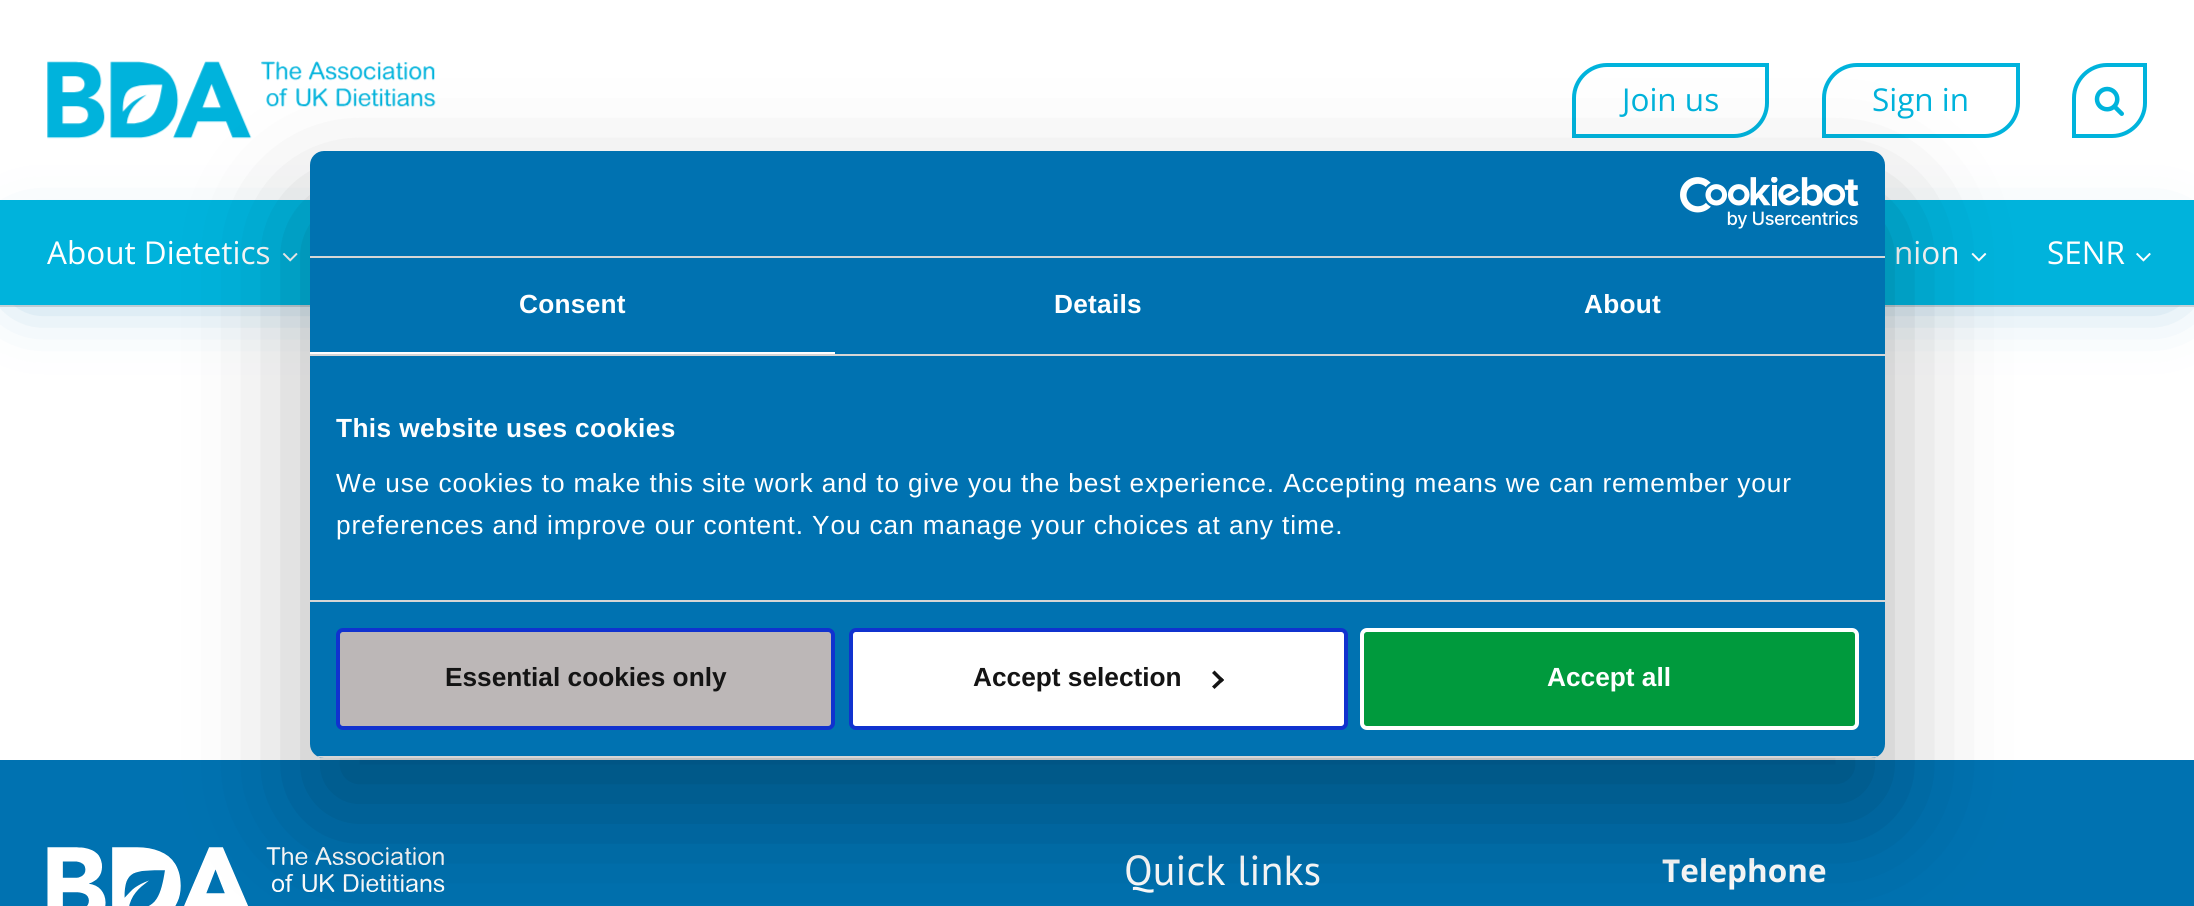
#include <cairo.h>
#include <math.h>
#include <stddef.h>


static void set_color(cairo_t *cr, unsigned color) {
    cairo_set_source_rgb(cr, (color >> 16) / 255.0, (color >> 8 & 255) / 255.0, (color & 255) / 255.0);
}

static void draw_text(cairo_t *cr, double x, double y, const char *s, const char *family, double size, int italic, int bold, unsigned color) {
    cairo_select_font_face(cr, family, italic ? CAIRO_FONT_SLANT_ITALIC : CAIRO_FONT_SLANT_NORMAL,
        bold ? CAIRO_FONT_WEIGHT_BOLD : CAIRO_FONT_WEIGHT_NORMAL);
    cairo_set_font_size(cr, size);
    set_color(cr, color);
    cairo_move_to(cr, x, y);
    cairo_show_text(cr, s);
}

static void draw_spaced(cairo_t *cr, double x, double y, const char *s, double letter, double word) {
    cairo_move_to(cr, x, y);
    while (*s) {
        char ch[5] = {0};
        int n = 0;
        do ch[n++] = *s++; while ((*s & 0xC0) == 0x80);
        cairo_show_text(cr, ch);
        cairo_rel_move_to(cr, letter + word * (*ch == ' '), 0);
    }
}

static void fill_rect(cairo_t *cr, double x, double y, double w, double h, unsigned color) {
    set_color(cr, color);
    cairo_rectangle(cr, x, y, w, h);
    cairo_fill(cr);
}

static void rounded_rect(cairo_t *cr, double x, double y, double w, double h, double r) {
    cairo_new_sub_path(cr);
    cairo_arc(cr, x + w - r, y + h - r, r, 0, M_PI / 2);
    cairo_arc(cr, x + r, y + h - r, r, M_PI / 2, M_PI);
    cairo_arc(cr, x + r, y + r, r, M_PI, 1.5 * M_PI);
    cairo_arc(cr, x + w - r, y + r, r, 1.5 * M_PI, 2 * M_PI);
    cairo_close_path(cr);
}

static void draw_shadow(cairo_t *cr, double x, double y, double w, double h, double r, double blur, double alpha) {
    cairo_push_group_with_content(cr, CAIRO_CONTENT_ALPHA);
    cairo_set_operator(cr, CAIRO_OPERATOR_SOURCE);
    for (int i = 15; i >= -15 && fmin(w, h) + blur * i / 3 > 0; i -= 2) {
        double e = blur * i / 6;
        cairo_set_source_rgba(cr, 0, 0, 0, alpha * erfc((i - 1) / 8.5) / 2);
        rounded_rect(cr, x - e, y - e, w + 2 * e, h + 2 * e, fmax(0, fmin(r + e + blur * .6, fmin(w, h) / 2 + e)));
        cairo_fill(cr);
    }
    cairo_pattern_t *soft = cairo_pop_group(cr);
    cairo_mask(cr, soft);
    cairo_pattern_destroy(soft);
}

static void draw_image(cairo_t *cr, const char *path, double x, double y, double w, double h) {
    cairo_surface_t *image = cairo_image_surface_create_from_png(path);
    cairo_save(cr);
    cairo_set_source_surface(cr, image, x, y);
    cairo_rectangle(cr, x, y, w, h);
    cairo_fill(cr);
    cairo_restore(cr);
    cairo_surface_destroy(image);
}

int main(void) {
    cairo_surface_t *surface = cairo_image_surface_create(CAIRO_FORMAT_RGB24, 2194, 906);
    cairo_t *cr = cairo_create(surface);
    cairo_font_options_t *options = cairo_font_options_create();
    cairo_font_options_set_hint_metrics(options, CAIRO_HINT_METRICS_OFF);
    cairo_font_options_set_hint_style(options, CAIRO_HINT_STYLE_NONE);
    cairo_set_font_options(cr, options);
    cairo_set_miter_limit(cr, 4);
    set_color(cr, 0xFFFFFF);
    cairo_paint(cr);
    fill_rect(cr, 0, 305, 2194, 2, 0xD9D9D9);
    draw_image(cr, "assets/img1.png", 47, 61, 389, 78);
    cairo_new_path(cr);
    cairo_move_to(cr, 1607, 65);
    cairo_line_to(cr, 1767, 65);
    cairo_line_to(cr, 1767, 103);
    cairo_curve_to(cr, 1767, 121, 1752, 136, 1734, 136);
    cairo_line_to(cr, 1574, 136);
    cairo_line_to(cr, 1574, 98);
    cairo_curve_to(cr, 1574, 80, 1589, 65, 1607, 65);
    cairo_close_path(cr);
    set_color(cr, 0x00B3DC);
    cairo_set_line_width(cr, 4);
    cairo_stroke(cr);
    draw_text(cr, 1622, 111, "Join us", "Open Sans", 31.5, 0, 0, 0x00B3DC);
    cairo_new_path(cr);
    cairo_move_to(cr, 1857, 65);
    cairo_line_to(cr, 2018, 65);
    cairo_line_to(cr, 2018, 103);
    cairo_curve_to(cr, 2018, 121, 2003, 136, 1985, 136);
    cairo_line_to(cr, 1824, 136);
    cairo_line_to(cr, 1824, 98);
    cairo_curve_to(cr, 1824, 80, 1839, 65, 1857, 65);
    cairo_close_path(cr);
    cairo_stroke(cr);
    draw_text(cr, 1872, 111, "Sign in", "Open Sans", 31.5, 0, 0, 0x00B3DC);
    cairo_new_path(cr);
    cairo_move_to(cr, 2107, 65);
    cairo_line_to(cr, 2145, 65);
    cairo_line_to(cr, 2145, 103);
    cairo_curve_to(cr, 2145, 121, 2130, 136, 2112, 136);
    cairo_line_to(cr, 2074, 136);
    cairo_line_to(cr, 2074, 98);
    cairo_curve_to(cr, 2074, 80, 2089, 65, 2107, 65);
    cairo_close_path(cr);
    cairo_stroke(cr);
    draw_image(cr, "assets/img2.png", 2094, 86, 30, 30);
    set_color(cr, 0x0072B1);
    draw_shadow(cr, 26, 252, 2142, 35, 0, 35, 0.5);
    fill_rect(cr, 0, 200, 2194, 105, 0x00B3DC);
    draw_text(cr, 47, 264, "About Dietetics", "Open Sans", 31.5, 0, 0, 0xFFFFFF);
    draw_image(cr, "assets/img3.png", 282, 253, 16, 9);
    draw_text(cr, 1894, 264, "nion", "Open Sans", 31.5, 0, 0, 0xFFFFFF);
    draw_image(cr, "assets/img4.png", 1971, 253, 16, 9);
    draw_text(cr, 2047, 264, "SENR", "Open Sans", 31.5, 0, 0, 0xFFFFFF);
    draw_image(cr, "assets/img5.png", 2136, 253, 15, 9);
    fill_rect(cr, 0, 760, 2194, 146, 0x0072B1);
    draw_image(cr, "assets/img6.png", 47, 847, 398, 59);
    draw_text(cr, 1124, 885, "Quick links", "PT Sans", 42, 0, 0, 0xFFFFFF);
    draw_text(cr, 1662, 882, "Telephone", "Open Sans", 31.5, 0, 1, 0xFFFFFF);
    set_color(cr, 0x000000);
    draw_shadow(cr, 310, 207, 1575, 607, 14, 59.5, 0.3);
    set_color(cr, 0x0072B1);
    rounded_rect(cr, 310, 151, 1575, 607, 14);
    cairo_fill(cr);
    fill_rect(cr, 310, 256, 1575, 2, 0xD6D6D6);
    draw_image(cr, "assets/img7.png", 1680, 177, 179, 52);
    fill_rect(cr, 310, 354, 1575, 2, 0xD6D6D6);
    fill_rect(cr, 310, 352, 525, 2, 0xFFFFFF);
    cairo_select_font_face(cr, "Liberation Sans", CAIRO_FONT_SLANT_NORMAL, CAIRO_FONT_WEIGHT_BOLD);
    cairo_set_font_size(cr, 26.25);
    draw_spaced(cr, 519, 313, "Consent", 0.25, 0);
    draw_spaced(cr, 1054, 313, "Details", 0.25, 0);
    draw_spaced(cr, 1584, 313, "About", 0.25, 0);
    fill_rect(cr, 310, 600, 1575, 2, 0xD6D6D6);
    set_color(cr, 0xFFFFFF);
    draw_spaced(cr, 336, 437, "This website uses cookies", 0.4, 0);
    cairo_select_font_face(cr, "Liberation Sans", CAIRO_FONT_SLANT_NORMAL, CAIRO_FONT_WEIGHT_NORMAL);
    draw_spaced(cr, 336, 492, "We use cookies to make this site work and to give you the best experience. Accepting means we can remember your", 0.88, 0);
    draw_spaced(cr, 336, 534, "preferences and improve our content. You can manage your choices at any time.", 0.88, 0);
    cairo_save(cr);
    rounded_rect(cr, 310, 151, 1575, 607, 14);
    cairo_clip(cr);
    fill_rect(cr, 310, 756, 1575, 2, 0xD6D6D6);
    cairo_restore(cr);
    set_color(cr, 0xBCB7B7);
    rounded_rect(cr, 338, 630, 495, 98, 5);
    cairo_fill_preserve(cr);
    set_color(cr, 0x1032CF);
    cairo_stroke(cr);
    draw_text(cr, 445, 686, "Essential cookies only", "Liberation Sans", 26.25, 0, 1, 0x141414);
    set_color(cr, 0xFFFFFF);
    rounded_rect(cr, 851, 630, 495, 98, 5);
    cairo_fill_preserve(cr);
    set_color(cr, 0x1032CF);
    cairo_stroke(cr);
    draw_text(cr, 973, 686, "Accept selection", "Liberation Sans", 26.25, 0, 1, 0x141414);
    cairo_new_path(cr);
    cairo_move_to(cr, 1214.5, 670.5);
    cairo_line_to(cr, 1224, 680);
    cairo_line_to(cr, 1221.5, 682.5);
    cairo_line_to(cr, 1212, 673);
    cairo_close_path(cr);
    cairo_fill(cr);
    cairo_new_path(cr);
    cairo_move_to(cr, 1221.5, 677.5);
    cairo_line_to(cr, 1224, 680);
    cairo_line_to(cr, 1214.5, 689);
    cairo_line_to(cr, 1212, 686.5);
    cairo_close_path(cr);
    cairo_fill(cr);
    set_color(cr, 0x009A3D);
    rounded_rect(cr, 1362, 630, 495, 98, 5);
    cairo_fill_preserve(cr);
    set_color(cr, 0xFFFFFF);
    cairo_stroke(cr);
    draw_text(cr, 1547, 686, "Accept all", "Liberation Sans", 26.25, 0, 1, 0xFFFFFF);
    cairo_surface_write_to_png(surface, "output.png");
    cairo_font_options_destroy(options);
    cairo_destroy(cr);
    cairo_surface_destroy(surface);
    return 0;
}
